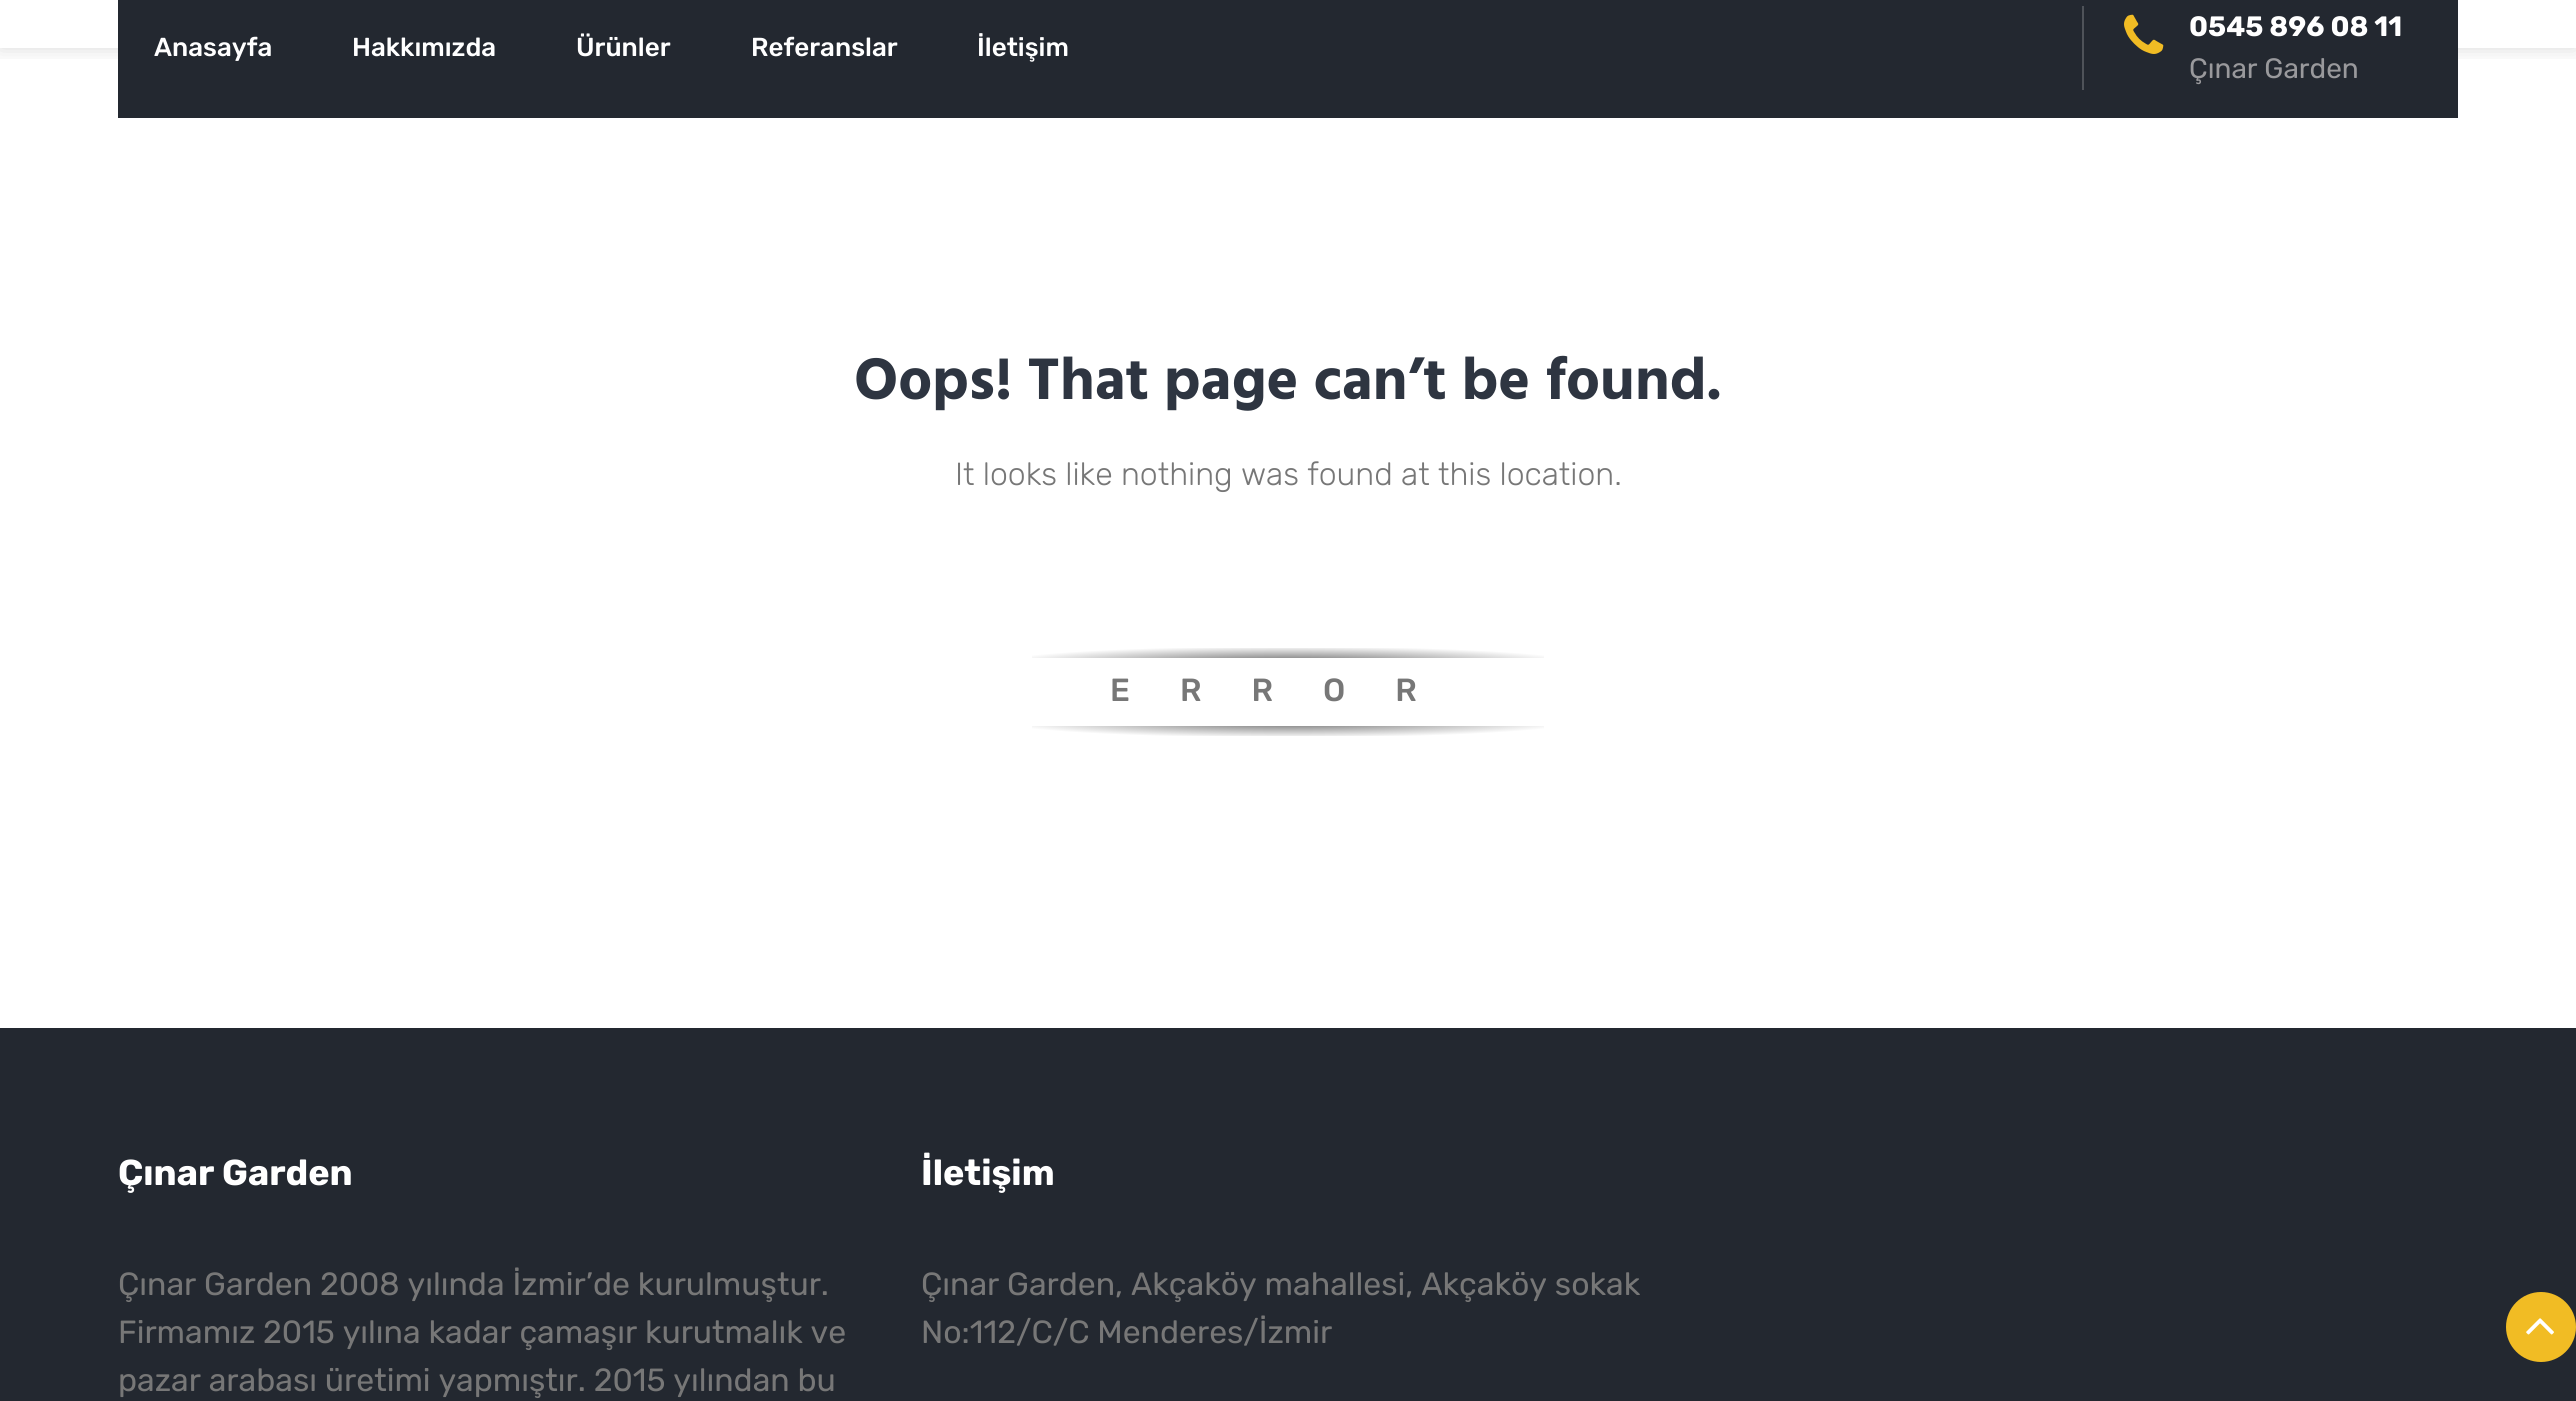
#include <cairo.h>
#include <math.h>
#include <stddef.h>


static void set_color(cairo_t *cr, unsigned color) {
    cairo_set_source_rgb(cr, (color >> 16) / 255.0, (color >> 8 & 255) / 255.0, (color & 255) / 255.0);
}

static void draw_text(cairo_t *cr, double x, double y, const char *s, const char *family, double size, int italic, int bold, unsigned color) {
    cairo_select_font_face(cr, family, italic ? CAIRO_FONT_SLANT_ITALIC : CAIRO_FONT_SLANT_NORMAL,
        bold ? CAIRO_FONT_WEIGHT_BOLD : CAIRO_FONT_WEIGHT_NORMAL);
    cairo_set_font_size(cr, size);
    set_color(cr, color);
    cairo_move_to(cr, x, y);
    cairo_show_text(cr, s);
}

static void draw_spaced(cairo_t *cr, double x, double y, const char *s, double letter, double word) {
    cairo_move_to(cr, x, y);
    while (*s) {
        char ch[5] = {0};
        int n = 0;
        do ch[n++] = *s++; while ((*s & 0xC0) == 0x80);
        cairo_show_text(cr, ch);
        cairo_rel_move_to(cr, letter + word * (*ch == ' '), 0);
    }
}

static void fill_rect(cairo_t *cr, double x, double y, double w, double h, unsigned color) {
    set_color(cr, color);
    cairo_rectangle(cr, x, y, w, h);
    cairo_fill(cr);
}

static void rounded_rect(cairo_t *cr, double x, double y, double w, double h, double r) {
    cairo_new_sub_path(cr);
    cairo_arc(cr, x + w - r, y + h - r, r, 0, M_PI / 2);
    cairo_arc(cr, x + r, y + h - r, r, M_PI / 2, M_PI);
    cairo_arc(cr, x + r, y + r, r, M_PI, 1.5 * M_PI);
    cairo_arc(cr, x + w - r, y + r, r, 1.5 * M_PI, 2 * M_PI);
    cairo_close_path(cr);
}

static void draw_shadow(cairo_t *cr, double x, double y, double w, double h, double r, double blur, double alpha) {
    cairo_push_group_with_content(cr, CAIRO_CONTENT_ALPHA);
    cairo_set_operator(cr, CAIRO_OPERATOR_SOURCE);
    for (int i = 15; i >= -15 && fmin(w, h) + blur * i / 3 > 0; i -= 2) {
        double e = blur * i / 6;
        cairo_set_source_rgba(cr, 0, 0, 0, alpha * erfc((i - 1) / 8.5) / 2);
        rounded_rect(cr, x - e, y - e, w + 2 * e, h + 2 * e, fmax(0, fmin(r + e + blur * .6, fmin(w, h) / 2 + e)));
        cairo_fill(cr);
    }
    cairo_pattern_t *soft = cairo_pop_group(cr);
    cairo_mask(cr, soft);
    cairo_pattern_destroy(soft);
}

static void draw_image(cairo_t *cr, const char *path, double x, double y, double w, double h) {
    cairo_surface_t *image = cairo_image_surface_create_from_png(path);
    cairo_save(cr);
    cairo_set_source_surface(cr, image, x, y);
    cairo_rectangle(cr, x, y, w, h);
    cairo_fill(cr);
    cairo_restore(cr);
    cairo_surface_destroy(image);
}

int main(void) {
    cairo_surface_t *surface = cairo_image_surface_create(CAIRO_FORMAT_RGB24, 2576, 1401);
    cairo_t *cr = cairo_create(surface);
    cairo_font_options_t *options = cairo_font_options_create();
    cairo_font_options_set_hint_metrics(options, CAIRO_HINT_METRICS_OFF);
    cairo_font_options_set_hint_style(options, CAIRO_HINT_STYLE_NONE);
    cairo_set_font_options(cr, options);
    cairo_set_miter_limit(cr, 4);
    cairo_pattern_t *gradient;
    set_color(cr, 0xFFFFFF);
    cairo_paint(cr);
    cairo_save(cr);
    cairo_rectangle(cr, 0, 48, 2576, 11);
    cairo_clip(cr);
    set_color(cr, 0x000000);
    draw_shadow(cr, 0, -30, 2576, 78, 0, 10, 0.15);
    cairo_restore(cr);
    fill_rect(cr, 118, 0, 2340, 118, 0x232830);
    draw_text(cr, 154, 56, "Anasayfa", "Rubik Medium", 26, 0, 0, 0xFFFFFF);
    draw_text(cr, 352, 56, "Hakkımızda", "Rubik Medium", 26, 0, 0, 0xFFFFFF);
    draw_text(cr, 576, 56, "Ürünler", "Rubik Medium", 26, 0, 0, 0xFFFFFF);
    draw_text(cr, 751, 56, "Referanslar", "Rubik Medium", 26, 0, 0, 0xFFFFFF);
    draw_text(cr, 977, 56, "İletişim", "Rubik Medium", 26, 0, 0, 0xFFFFFF);
    fill_rect(cr, 2082, 6, 2, 84, 0x4F5359);
    draw_image(cr, "assets/img1.png", 2124, 14, 40, 40);
    draw_text(cr, 2189, 36, "0545 896 08 11", "Rubik", 28, 0, 1, 0xFFFFFF);
    draw_text(cr, 2189, 78, "Çınar Garden", "Rubik", 28, 0, 0, 0x99999C);
    draw_text(cr, 854, 399, "Oops! That page can’t be found.", "Hind", 60, 0, 1, 0x2E3541);
    draw_text(cr, 955, 485, "It looks like nothing was found at this location.", "Rubik Light", 32, 0, 0, 0x777777);
    gradient = cairo_pattern_create_radial(0, 0, 0, 0, 0, 1);
    cairo_pattern_set_matrix(gradient, &(cairo_matrix_t){1.0 / 362, 0, 0, 1.0 / 21, -1.0 * 1288 / 362, -1.0 * 663 / 21});
    cairo_pattern_add_color_stop_rgba(gradient, 0, 0, 0, 0, 0.6);
    cairo_pattern_add_color_stop_rgba(gradient, 0.8, 0, 0, 0, 0);
    cairo_set_source(cr, gradient);
    cairo_pattern_destroy(gradient);
    cairo_rectangle(cr, 1032, 648, 512, 10);
    cairo_fill(cr);
    cairo_select_font_face(cr, "Rubik Medium", CAIRO_FONT_SLANT_NORMAL, CAIRO_FONT_WEIGHT_NORMAL);
    set_color(cr, 0x777777);
    draw_spaced(cr, 1110, 701, "ERROR", 50, 0);
    gradient = cairo_pattern_create_radial(0, 0, 0, 0, 0, 1);
    cairo_pattern_set_matrix(gradient, &(cairo_matrix_t){1.0 / 362, 0, 0, 1.0 / 21, -1.0 * 1288 / 362, -1.0 * 721 / 21});
    cairo_pattern_add_color_stop_rgba(gradient, 0, 0, 0, 0, 0.6);
    cairo_pattern_add_color_stop_rgba(gradient, 0.8, 0, 0, 0, 0);
    cairo_set_source(cr, gradient);
    cairo_pattern_destroy(gradient);
    cairo_rectangle(cr, 1032, 726, 512, 10);
    cairo_fill(cr);
    fill_rect(cr, 0, 1028, 2576, 373, 0x232830);
    draw_text(cr, 118, 1185, "Çınar Garden", "Rubik", 36, 0, 1, 0xFFFFFF);
    draw_text(cr, 118, 1295, "Çınar Garden 2008 yılında İzmir’de kurulmuştur.", "Rubik", 32, 0, 0, 0x777777);
    draw_text(cr, 118, 1343, "Firmamız 2015 yılına kadar çamaşır kurutmalık ve", "Rubik", 32, 0, 0, 0x777777);
    draw_text(cr, 118, 1391, "pazar arabası üretimi yapmıştır. 2015 yılından bu", "Rubik", 32, 0, 0, 0x777777);
    draw_text(cr, 921, 1185, "İletişim", "Rubik", 36, 0, 1, 0xFFFFFF);
    draw_text(cr, 921, 1295, "Çınar Garden, Akçaköy mahallesi, Akçaköy sokak", "Rubik", 32, 0, 0, 0x777777);
    draw_text(cr, 921, 1343, "No:112/C/C Menderes/İzmir", "Rubik", 32, 0, 0, 0x777777);
    set_color(cr, 0xF1BC24);
    cairo_new_path(cr);
    cairo_arc(cr, 2541, 1327, 35, 0, 2 * M_PI);
    cairo_fill(cr);
    draw_image(cr, "assets/img2.png", 2526, 1318, 28, 17);
    cairo_surface_write_to_png(surface, "output.png");
    cairo_font_options_destroy(options);
    cairo_destroy(cr);
    cairo_surface_destroy(surface);
    return 0;
}
